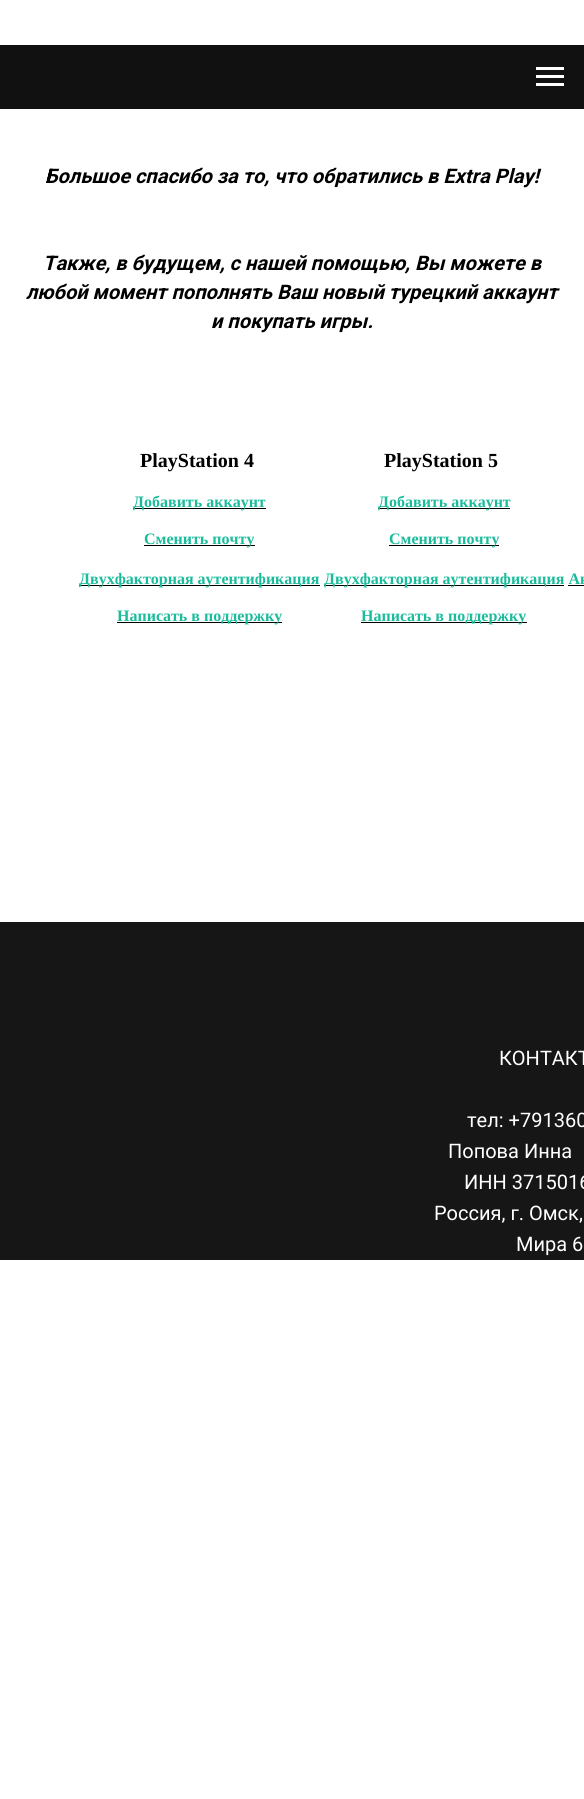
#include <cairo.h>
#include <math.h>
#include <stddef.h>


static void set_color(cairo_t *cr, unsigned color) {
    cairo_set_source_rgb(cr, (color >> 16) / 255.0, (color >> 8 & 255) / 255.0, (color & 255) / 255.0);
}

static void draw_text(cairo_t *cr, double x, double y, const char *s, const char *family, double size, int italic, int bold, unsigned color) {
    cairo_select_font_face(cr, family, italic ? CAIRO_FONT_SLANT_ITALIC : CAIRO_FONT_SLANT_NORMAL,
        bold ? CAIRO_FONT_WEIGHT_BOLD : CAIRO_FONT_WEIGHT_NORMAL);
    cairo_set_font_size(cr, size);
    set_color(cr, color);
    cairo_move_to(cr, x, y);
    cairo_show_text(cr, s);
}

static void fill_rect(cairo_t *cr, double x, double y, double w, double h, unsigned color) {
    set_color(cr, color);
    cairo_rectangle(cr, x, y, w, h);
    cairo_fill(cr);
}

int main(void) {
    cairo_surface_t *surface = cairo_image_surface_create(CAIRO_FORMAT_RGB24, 584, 1799);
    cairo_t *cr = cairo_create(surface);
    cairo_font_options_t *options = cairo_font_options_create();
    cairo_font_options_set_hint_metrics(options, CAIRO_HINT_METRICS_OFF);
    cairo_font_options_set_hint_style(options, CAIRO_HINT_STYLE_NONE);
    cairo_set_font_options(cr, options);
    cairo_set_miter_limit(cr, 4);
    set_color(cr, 0xFFFFFF);
    cairo_paint(cr);
    fill_rect(cr, 0, 45, 584, 64, 0x111111);
    fill_rect(cr, 536, 67, 28, 3, 0xFFFFFF);
    fill_rect(cr, 536, 75, 28, 3, 0xFFFFFF);
    fill_rect(cr, 536, 83, 28, 3, 0xFFFFFF);
    draw_text(cr, 45, 183, "Большое спасибо за то, что обратились в Extra Play!", "Roboto", 20, 1, 1, 0x000000);
    draw_text(cr, 43, 270, "Также, в будущем, с нашей помощью, Вы можете в", "Roboto", 20, 1, 1, 0x000000);
    draw_text(cr, 26, 299, "любой момент пополнять Ваш новый турецкий аккаунт", "Roboto", 20, 1, 1, 0x000000);
    draw_text(cr, 211, 328, "и покупать игры.", "Roboto", 20, 1, 1, 0x000000);
    draw_text(cr, 140, 467, "PlayStation 4", "Liberation Serif", 20, 0, 1, 0x000000);
    draw_text(cr, 384, 467, "PlayStation 5", "Liberation Serif", 20, 0, 1, 0x000000);
    fill_rect(cr, 133, 508, 133, 1, 0x000000);
    draw_text(cr, 133, 507, "Добавить аккаунт", "Liberation Serif", 16, 0, 1, 0x1ABC9C);
    fill_rect(cr, 378, 508, 132, 1, 0x000000);
    draw_text(cr, 378, 507, "Добавить аккаунт", "Liberation Serif", 16, 0, 1, 0x1ABC9C);
    fill_rect(cr, 144, 545, 111, 1, 0x000000);
    draw_text(cr, 144, 544, "Сменить почту", "Liberation Serif", 16, 0, 1, 0x1ABC9C);
    fill_rect(cr, 389, 545, 110, 1, 0x000000);
    draw_text(cr, 389, 544, "Сменить почту", "Liberation Serif", 16, 0, 1, 0x1ABC9C);
    fill_rect(cr, 79, 585, 241, 1, 0x000000);
    draw_text(cr, 79, 584, "Двухфакторная аутентификация", "Liberation Serif", 16, 0, 1, 0x1ABC9C);
    fill_rect(cr, 324, 585, 240, 1, 0x000000);
    draw_text(cr, 324, 584, "Двухфакторная аутентификация Ак", "Liberation Serif", 16, 0, 1, 0x1ABC9C);
    fill_rect(cr, 568, 585, 16, 1, 0x000000);
    fill_rect(cr, 117, 622, 165, 1, 0x000000);
    draw_text(cr, 117, 621, "Написать в поддержку", "Liberation Serif", 16, 0, 1, 0x1ABC9C);
    fill_rect(cr, 361, 622, 166, 1, 0x000000);
    draw_text(cr, 361, 621, "Написать в поддержку", "Liberation Serif", 16, 0, 1, 0x1ABC9C);
    fill_rect(cr, 0, 922, 584, 338, 0x161616);
    draw_text(cr, 499, 1065, "КОНТАКТ", "Roboto", 20, 0, 0, 0xFFFFFF);
    draw_text(cr, 467, 1127, "тел: +791360", "Roboto", 20, 0, 0, 0xFFFFFF);
    draw_text(cr, 448, 1158, "Попова Инна", "Roboto", 20, 0, 0, 0xFFFFFF);
    draw_text(cr, 464, 1189, "ИНН 3715016", "Roboto", 20, 0, 0, 0xFFFFFF);
    draw_text(cr, 434, 1220, "Россия, г. Омск,", "Roboto", 20, 0, 0, 0xFFFFFF);
    draw_text(cr, 516, 1251, "Мира 6", "Roboto", 20, 0, 0, 0xFFFFFF);
    cairo_surface_write_to_png(surface, "output.png");
    cairo_font_options_destroy(options);
    cairo_destroy(cr);
    cairo_surface_destroy(surface);
    return 0;
}
